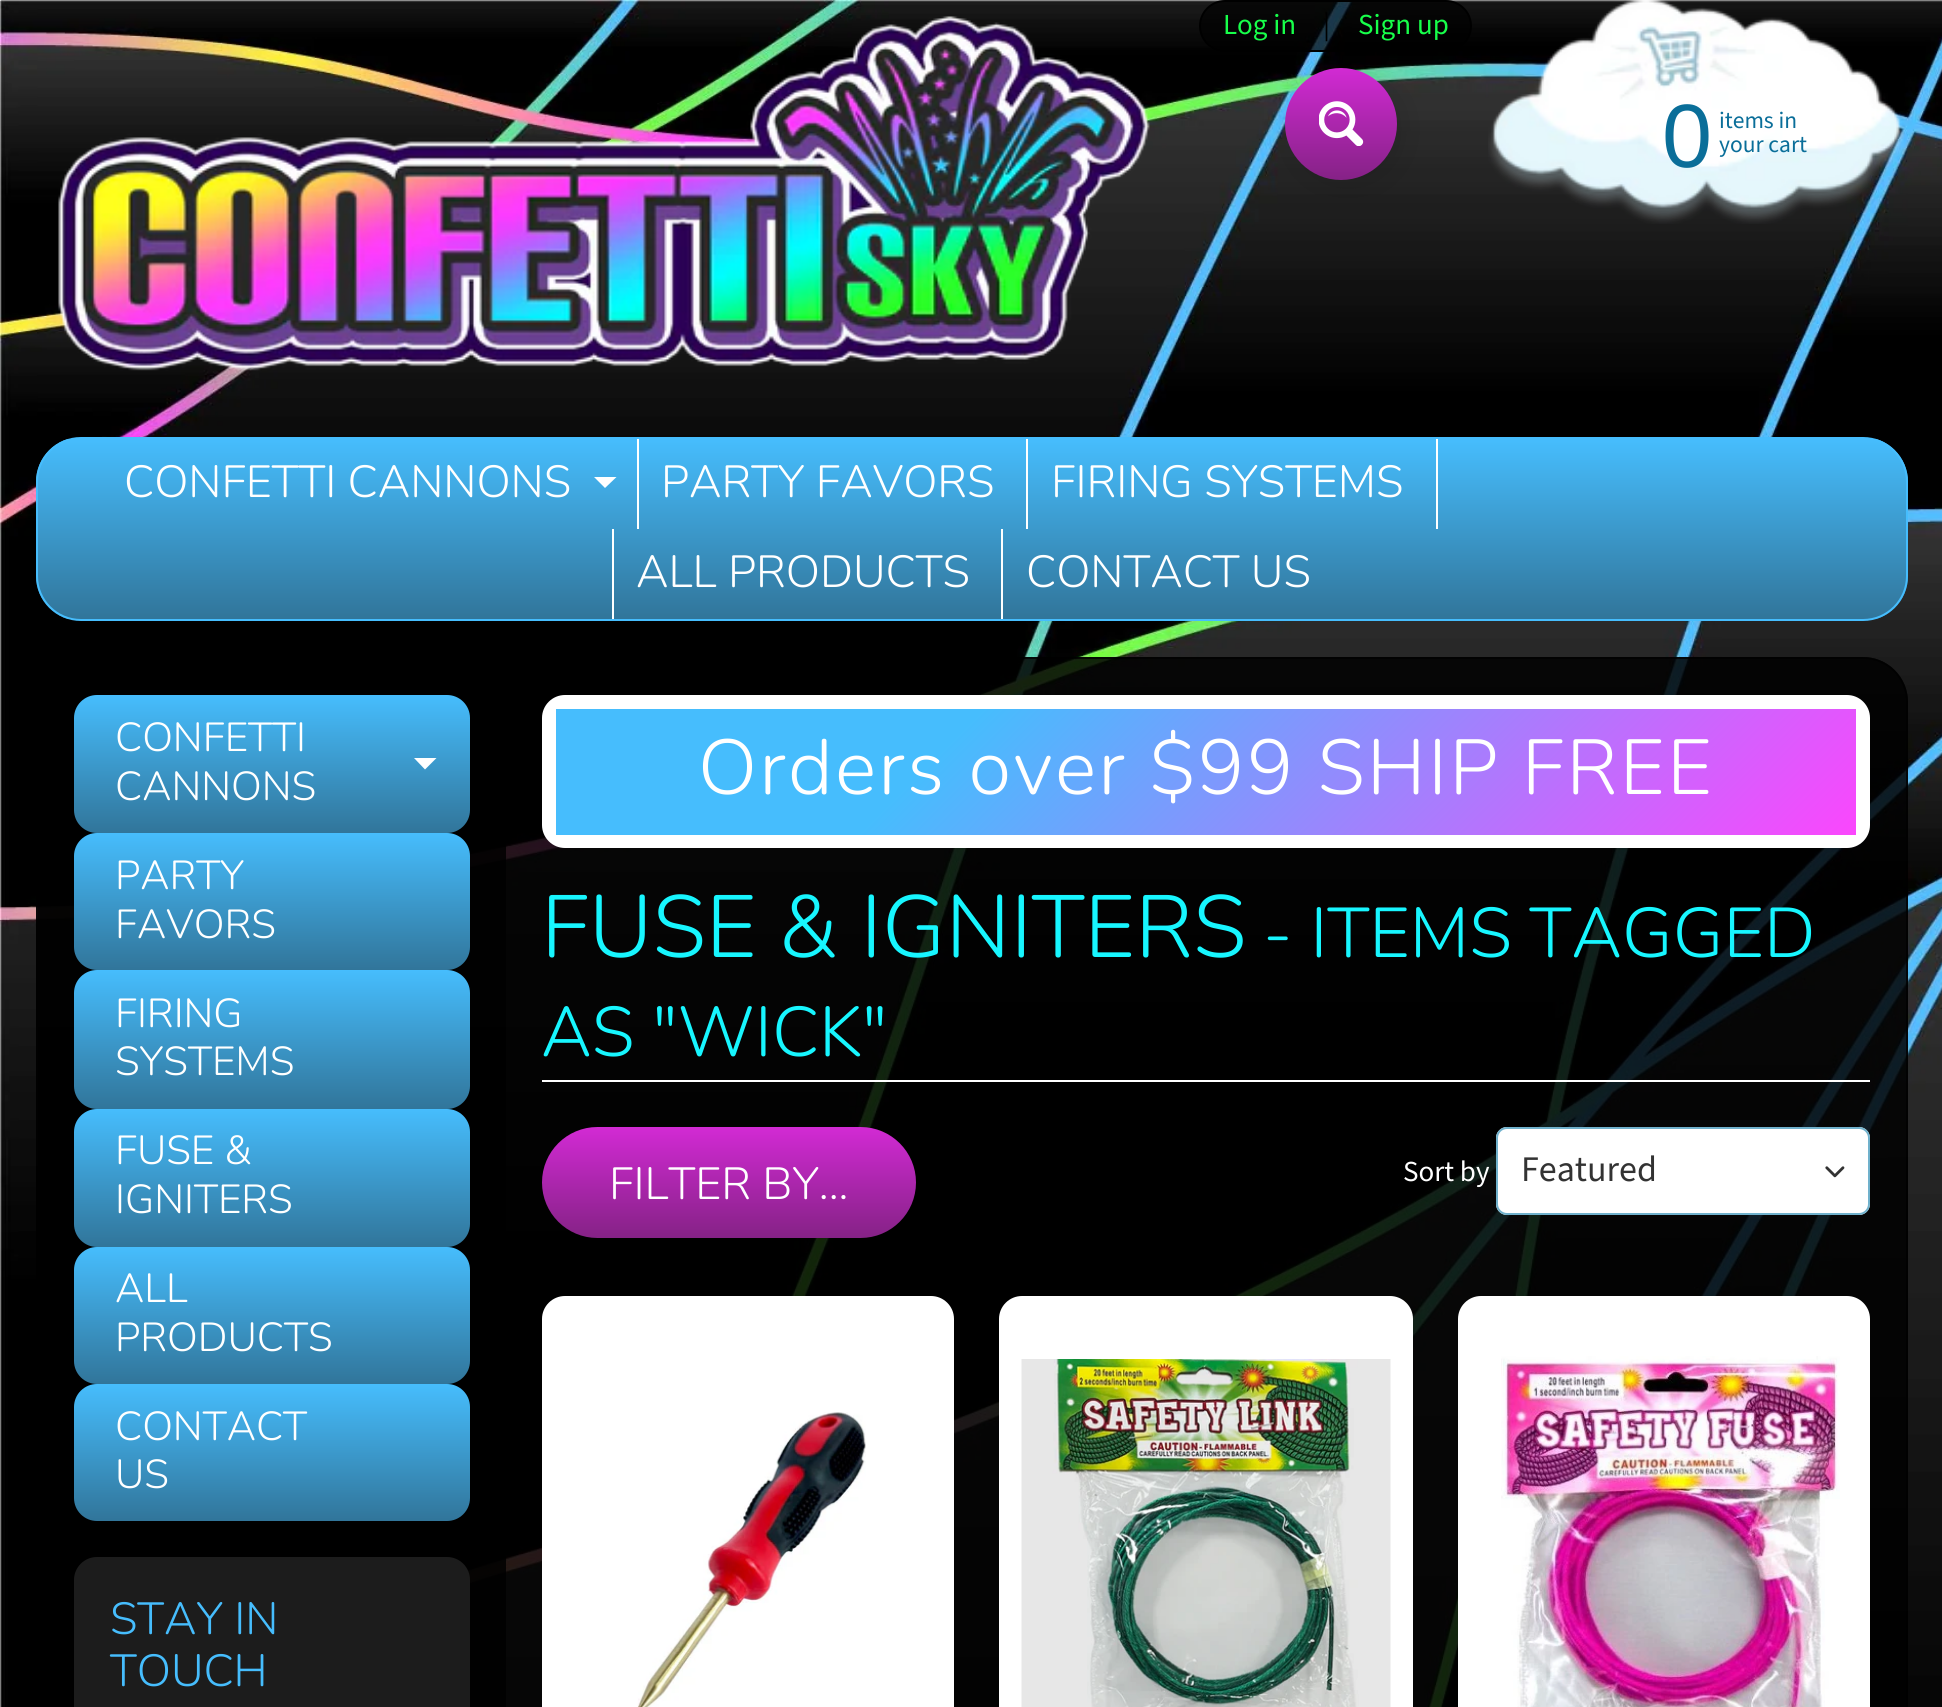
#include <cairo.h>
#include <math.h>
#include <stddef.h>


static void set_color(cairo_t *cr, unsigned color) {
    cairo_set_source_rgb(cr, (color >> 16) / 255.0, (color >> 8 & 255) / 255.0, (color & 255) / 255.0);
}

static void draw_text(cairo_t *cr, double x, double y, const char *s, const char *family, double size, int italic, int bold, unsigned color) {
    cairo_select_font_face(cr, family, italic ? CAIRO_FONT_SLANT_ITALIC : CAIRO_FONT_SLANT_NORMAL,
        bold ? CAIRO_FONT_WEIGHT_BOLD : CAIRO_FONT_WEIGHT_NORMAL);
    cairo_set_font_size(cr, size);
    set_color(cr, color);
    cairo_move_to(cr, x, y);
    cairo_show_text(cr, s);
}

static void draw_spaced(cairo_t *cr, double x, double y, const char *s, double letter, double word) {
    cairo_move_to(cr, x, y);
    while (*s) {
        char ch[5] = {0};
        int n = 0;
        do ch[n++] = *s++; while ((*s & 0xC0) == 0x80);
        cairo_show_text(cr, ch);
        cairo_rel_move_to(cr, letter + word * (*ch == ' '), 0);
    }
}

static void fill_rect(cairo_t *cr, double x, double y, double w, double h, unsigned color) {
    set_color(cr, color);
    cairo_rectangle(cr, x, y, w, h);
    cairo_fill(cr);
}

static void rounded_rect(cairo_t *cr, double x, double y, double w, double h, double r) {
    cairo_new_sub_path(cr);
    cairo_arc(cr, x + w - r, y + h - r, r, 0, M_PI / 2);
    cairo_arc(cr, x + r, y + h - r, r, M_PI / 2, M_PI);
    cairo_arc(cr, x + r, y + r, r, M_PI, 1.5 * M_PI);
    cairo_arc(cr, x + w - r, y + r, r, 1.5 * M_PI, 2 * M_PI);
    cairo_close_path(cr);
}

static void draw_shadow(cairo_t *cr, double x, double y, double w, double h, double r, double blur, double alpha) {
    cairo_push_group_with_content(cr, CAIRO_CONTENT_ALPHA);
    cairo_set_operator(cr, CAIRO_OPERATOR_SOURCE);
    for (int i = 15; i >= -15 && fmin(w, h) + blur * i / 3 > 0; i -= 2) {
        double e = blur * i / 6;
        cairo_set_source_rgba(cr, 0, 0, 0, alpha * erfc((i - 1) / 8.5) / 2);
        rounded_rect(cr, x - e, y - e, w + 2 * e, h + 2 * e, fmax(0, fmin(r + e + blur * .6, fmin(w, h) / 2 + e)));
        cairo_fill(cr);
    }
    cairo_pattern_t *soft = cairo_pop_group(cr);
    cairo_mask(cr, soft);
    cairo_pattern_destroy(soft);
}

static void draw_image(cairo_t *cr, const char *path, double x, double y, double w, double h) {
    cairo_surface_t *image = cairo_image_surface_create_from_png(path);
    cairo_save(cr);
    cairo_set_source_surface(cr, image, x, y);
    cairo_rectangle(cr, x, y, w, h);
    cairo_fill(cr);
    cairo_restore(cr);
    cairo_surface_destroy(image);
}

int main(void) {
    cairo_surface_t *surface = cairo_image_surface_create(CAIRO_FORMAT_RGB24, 1942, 1707);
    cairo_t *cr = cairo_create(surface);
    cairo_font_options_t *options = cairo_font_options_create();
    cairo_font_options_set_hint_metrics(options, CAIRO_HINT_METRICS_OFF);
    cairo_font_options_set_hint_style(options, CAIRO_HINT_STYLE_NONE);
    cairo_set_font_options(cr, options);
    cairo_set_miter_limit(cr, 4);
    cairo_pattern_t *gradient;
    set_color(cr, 0xFFFFFF);
    cairo_paint(cr);
    draw_image(cr, "assets/img1.png", 0, 0, 1942, 1707);
    draw_image(cr, "assets/img2.png", 58, 16, 1092, 355);
    set_color(cr, 0x000000);
    draw_shadow(cr, 1292, 74, 112, 113, 56, 13.5, 0.1);
    cairo_set_source_rgba(cr, 0, 0, 0, 0.7);
    rounded_rect(cr, 1200, 1, 271, 50, 25);
    cairo_fill_preserve(cr);
    set_color(cr, 0x000000);
    cairo_stroke(cr);
    draw_text(cr, 1223, 34, "Log in", "Source Sans Pro", 29, 0, 0, 0x17FF4A);
    draw_text(cr, 1323, 34, "|", "Source Sans Pro", 29, 0, 0, 0x000000);
    draw_text(cr, 1358, 34, "Sign up", "Source Sans Pro", 29, 0, 0, 0x17FF4A);
    gradient = cairo_pattern_create_linear(1341, 67, 1341, 180);
    cairo_pattern_add_color_stop_rgba(gradient, 0, 0.824, 0.165, 0.831, 1);
    cairo_pattern_add_color_stop_rgba(gradient, 1, 0.522, 0.133, 0.525, 1);
    cairo_set_source(cr, gradient);
    cairo_pattern_destroy(gradient);
    cairo_new_path(cr);
    cairo_arc(cr, 1341, 124, 56, 0, 2 * M_PI);
    cairo_fill(cr);
    draw_image(cr, "assets/img3.png", 1319, 101, 45, 45);
    draw_image(cr, "assets/img4.png", 1488, 0, 416, 224);
    draw_text(cr, 1662, 167, "0", "Liberation Sans", 90, 0, 0, 0x0A6E99);
    draw_text(cr, 1719, 128, "items in", "Source Sans Pro", 23.5, 0, 0, 0x0A6E99);
    draw_text(cr, 1719, 152, "your cart", "Source Sans Pro", 23.5, 0, 0, 0x0A6E99);
    cairo_save(cr);
    rounded_rect(cr, 36, 437, 1872, 184, 45);
    cairo_clip(cr);
    gradient = cairo_pattern_create_linear(972, 439, 972, 619);
    cairo_pattern_add_color_stop_rgba(gradient, 0, 0.275, 0.741, 0.992, 1);
    cairo_pattern_add_color_stop_rgba(gradient, 1, 0.192, 0.459, 0.604, 1);
    cairo_set_source(cr, gradient);
    cairo_pattern_destroy(gradient);
    cairo_rectangle(cr, 36, 439, 1872, 180);
    cairo_fill(cr);
    cairo_restore(cr);
    rounded_rect(cr, 37, 438, 1870, 182, 44);
    set_color(cr, 0x46BDFD);
    cairo_stroke(cr);
    draw_text(cr, 124, 497, "CONFETTI CANNONS", "Nunito Light", 45, 0, 0, 0xFFFFFF);
    cairo_new_path(cr);
    cairo_move_to(cr, 594, 477);
    cairo_line_to(cr, 616.5, 477);
    cairo_line_to(cr, 605, 488);
    cairo_close_path(cr);
    cairo_fill(cr);
    fill_rect(cr, 637, 439, 2, 90, 0xFFFFFF);
    draw_text(cr, 661, 497, "PARTY FAVORS", "Nunito Light", 45, 0, 0, 0xFFFFFF);
    fill_rect(cr, 1026, 439, 2, 90, 0xFFFFFF);
    draw_text(cr, 1051, 497, "FIRING SYSTEMS", "Nunito Light", 45, 0, 0, 0xFFFFFF);
    fill_rect(cr, 1436, 439, 2, 90, 0xFFFFFF);
    fill_rect(cr, 612, 529, 2, 90, 0xFFFFFF);
    draw_text(cr, 636, 587, "ALL PRODUCTS", "Nunito Light", 45, 0, 0, 0xFFFFFF);
    fill_rect(cr, 1001, 529, 2, 90, 0xFFFFFF);
    draw_text(cr, 1026, 587, "CONTACT US", "Nunito Light", 45, 0, 0, 0xFFFFFF);
    cairo_set_source_rgba(cr, 0, 0, 0, 0.85);
    rounded_rect(cr, 36, 657, 1872, 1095, 45);
    cairo_fill(cr);
    rounded_rect(cr, 37, 658, 1870, 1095, 44);
    cairo_set_source_rgba(cr, 0, 0, 0, 0.7);
    cairo_stroke(cr);
    cairo_set_source_rgba(cr, 0, 0, 0, 0.85);
    cairo_new_path(cr);
    cairo_move_to(cr, 81, 659);
    cairo_line_to(cr, 506, 659);
    cairo_line_to(cr, 506, 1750);
    cairo_line_to(cr, 81, 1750);
    cairo_curve_to(cr, 57.5, 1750, 38, 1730.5, 38, 1707);
    cairo_line_to(cr, 38, 702);
    cairo_curve_to(cr, 38, 678.5, 57.5, 659, 81, 659);
    cairo_close_path(cr);
    cairo_fill(cr);
    gradient = cairo_pattern_create_linear(272, 695, 272, 833);
    cairo_pattern_add_color_stop_rgba(gradient, 0, 0.275, 0.741, 0.992, 1);
    cairo_pattern_add_color_stop_rgba(gradient, 1, 0.192, 0.459, 0.604, 1);
    cairo_set_source(cr, gradient);
    cairo_pattern_destroy(gradient);
    rounded_rect(cr, 74, 695, 396, 138, 23);
    cairo_fill(cr);
    draw_text(cr, 115, 751, "CONFETTI", "Nunito Light", 40.5, 0, 0, 0xFFFFFF);
    cairo_new_path(cr);
    cairo_move_to(cr, 414, 758);
    cairo_line_to(cr, 436.5, 758);
    cairo_line_to(cr, 425, 769.5);
    cairo_close_path(cr);
    cairo_fill(cr);
    draw_text(cr, 115, 800, "CANNONS", "Nunito Light", 40.5, 0, 0, 0xFFFFFF);
    gradient = cairo_pattern_create_linear(272, 833, 272, 970);
    cairo_pattern_add_color_stop_rgba(gradient, 0, 0.275, 0.741, 0.992, 1);
    cairo_pattern_add_color_stop_rgba(gradient, 1, 0.192, 0.459, 0.604, 1);
    cairo_set_source(cr, gradient);
    cairo_pattern_destroy(gradient);
    rounded_rect(cr, 74, 833, 396, 137, 23);
    cairo_fill(cr);
    draw_text(cr, 115, 889, "PARTY", "Nunito Light", 40.5, 0, 0, 0xFFFFFF);
    draw_text(cr, 115, 938, "FAVORS", "Nunito Light", 40.5, 0, 0, 0xFFFFFF);
    gradient = cairo_pattern_create_linear(272, 970, 272, 1109);
    cairo_pattern_add_color_stop_rgba(gradient, 0, 0.275, 0.741, 0.992, 1);
    cairo_pattern_add_color_stop_rgba(gradient, 1, 0.192, 0.459, 0.604, 1);
    cairo_set_source(cr, gradient);
    cairo_pattern_destroy(gradient);
    rounded_rect(cr, 74, 970, 396, 139, 23);
    cairo_fill(cr);
    draw_text(cr, 115, 1027, "FIRING", "Nunito Light", 40.5, 0, 0, 0xFFFFFF);
    draw_text(cr, 115, 1075, "SYSTEMS", "Nunito Light", 40.5, 0, 0, 0xFFFFFF);
    gradient = cairo_pattern_create_linear(272, 1109, 272, 1247);
    cairo_pattern_add_color_stop_rgba(gradient, 0, 0.275, 0.741, 0.992, 1);
    cairo_pattern_add_color_stop_rgba(gradient, 1, 0.192, 0.459, 0.604, 1);
    cairo_set_source(cr, gradient);
    cairo_pattern_destroy(gradient);
    rounded_rect(cr, 74, 1109, 396, 138, 23);
    cairo_fill(cr);
    draw_text(cr, 115, 1164, "FUSE &", "Nunito Light", 40.5, 0, 0, 0xFFFFFF);
    draw_text(cr, 115, 1213, "IGNITERS", "Nunito Light", 40.5, 0, 0, 0xFFFFFF);
    gradient = cairo_pattern_create_linear(272, 1247, 272, 1384);
    cairo_pattern_add_color_stop_rgba(gradient, 0, 0.275, 0.741, 0.992, 1);
    cairo_pattern_add_color_stop_rgba(gradient, 1, 0.192, 0.459, 0.604, 1);
    cairo_set_source(cr, gradient);
    cairo_pattern_destroy(gradient);
    rounded_rect(cr, 74, 1247, 396, 137, 23);
    cairo_fill(cr);
    draw_text(cr, 115, 1302, "ALL", "Nunito Light", 40.5, 0, 0, 0xFFFFFF);
    draw_text(cr, 115, 1351, "PRODUCTS", "Nunito Light", 40.5, 0, 0, 0xFFFFFF);
    gradient = cairo_pattern_create_linear(272, 1384, 272, 1521);
    cairo_pattern_add_color_stop_rgba(gradient, 0, 0.275, 0.741, 0.992, 1);
    cairo_pattern_add_color_stop_rgba(gradient, 1, 0.192, 0.459, 0.604, 1);
    cairo_set_source(cr, gradient);
    cairo_pattern_destroy(gradient);
    rounded_rect(cr, 74, 1384, 396, 137, 23);
    cairo_fill(cr);
    draw_text(cr, 115, 1440, "CONTACT", "Nunito Light", 40.5, 0, 0, 0xFFFFFF);
    draw_text(cr, 115, 1488, "US", "Nunito Light", 40.5, 0, 0, 0xFFFFFF);
    set_color(cr, 0x1C1C1C);
    rounded_rect(cr, 74, 1557, 396, 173, 23);
    cairo_fill(cr);
    draw_text(cr, 110, 1634, "STAY IN", "Nunito Light", 45, 0, 0, 0x46BDFD);
    draw_text(cr, 110, 1686, "TOUCH", "Nunito Light", 45, 0, 0, 0x46BDFD);
    set_color(cr, 0xFFFFFF);
    rounded_rect(cr, 542, 695, 1328, 153, 23);
    cairo_fill(cr);
    gradient = cairo_pattern_create_linear(849, 415, 1563, 1128);
    cairo_pattern_add_color_stop_rgba(gradient, 0.3, 0.275, 0.741, 0.992, 1);
    cairo_pattern_add_color_stop_rgba(gradient, 1, 0.984, 0.275, 0.992, 1);
    cairo_set_source(cr, gradient);
    cairo_pattern_destroy(gradient);
    cairo_rectangle(cr, 556, 709, 1300, 126);
    cairo_fill(cr);
    cairo_set_font_size(cr, 77.75);
    set_color(cr, 0xFFFFFF);
    draw_spaced(cr, 698, 794, "Orders over $99 SHIP FREE", 2.25, 0);
    fill_rect(cr, 542, 1080, 1328, 2, 0xFFFFFF);
    draw_text(cr, 541, 957, "FUSE & IGNITERS", "Nunito Light", 88, 0, 0, 0x17F6FF);
    draw_text(cr, 1263, 957, "- ITEMS TAGGED", "Nunito Light", 70.25, 0, 0, 0x17F6FF);
    draw_text(cr, 541, 1056, "AS \"WICK\"", "Nunito Light", 70.25, 0, 0, 0x17F6FF);
    gradient = cairo_pattern_create_linear(729, 1127, 729, 1238);
    cairo_pattern_add_color_stop_rgba(gradient, 0, 0.824, 0.165, 0.831, 1);
    cairo_pattern_add_color_stop_rgba(gradient, 1, 0.522, 0.133, 0.525, 1);
    cairo_set_source(cr, gradient);
    cairo_pattern_destroy(gradient);
    rounded_rect(cr, 542, 1127, 374, 111, 55.5);
    cairo_fill(cr);
    draw_text(cr, 609, 1199, "FILTER BY...", "Nunito Light", 45, 0, 0, 0xFFFFFF);
    draw_text(cr, 1403, 1181, "Sort by", "Source Sans Pro", 29, 0, 0, 0xFFFFFF);
    rounded_rect(cr, 1496, 1127, 374, 88, 11);
    cairo_fill(cr);
    draw_image(cr, "assets/img5.png", 1825, 1166, 20, 12);
    rounded_rect(cr, 1497, 1128, 372, 86, 10);
    set_color(cr, 0x70B1CC);
    cairo_stroke(cr);
    draw_text(cr, 1521, 1181, "Featured", "Source Sans Pro", 36, 0, 0, 0x333333);
    set_color(cr, 0xFFFFFF);
    rounded_rect(cr, 542, 1296, 412, 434, 23);
    cairo_fill(cr);
    draw_image(cr, "assets/img6.png", 637, 1412, 229, 295);
    rounded_rect(cr, 999, 1296, 414, 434, 23);
    cairo_fill(cr);
    draw_image(cr, "assets/img7.png", 1021, 1359, 370, 348);
    rounded_rect(cr, 1458, 1296, 412, 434, 23);
    cairo_fill(cr);
    draw_image(cr, "assets/img8.png", 1501, 1356, 339, 351);
    cairo_surface_write_to_png(surface, "output.png");
    cairo_font_options_destroy(options);
    cairo_destroy(cr);
    cairo_surface_destroy(surface);
    return 0;
}
